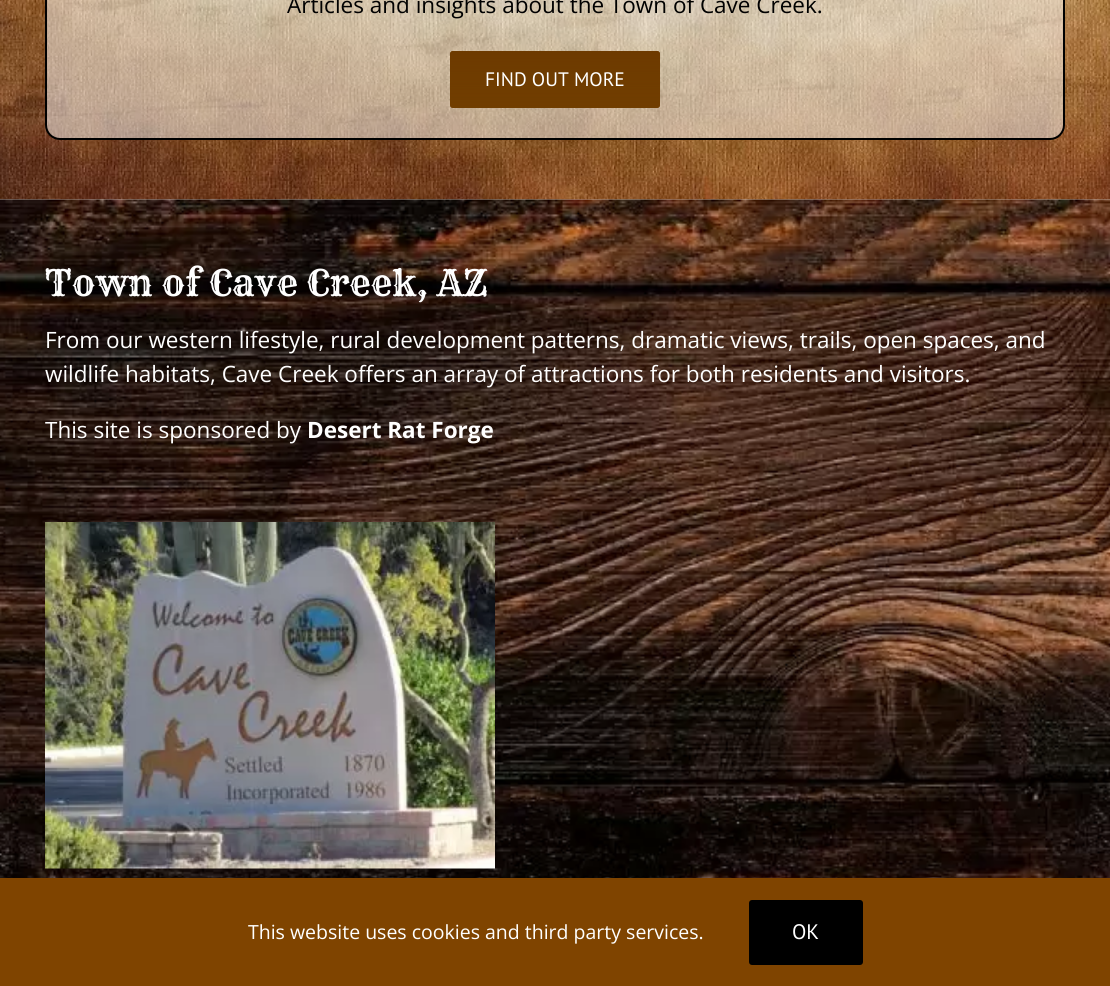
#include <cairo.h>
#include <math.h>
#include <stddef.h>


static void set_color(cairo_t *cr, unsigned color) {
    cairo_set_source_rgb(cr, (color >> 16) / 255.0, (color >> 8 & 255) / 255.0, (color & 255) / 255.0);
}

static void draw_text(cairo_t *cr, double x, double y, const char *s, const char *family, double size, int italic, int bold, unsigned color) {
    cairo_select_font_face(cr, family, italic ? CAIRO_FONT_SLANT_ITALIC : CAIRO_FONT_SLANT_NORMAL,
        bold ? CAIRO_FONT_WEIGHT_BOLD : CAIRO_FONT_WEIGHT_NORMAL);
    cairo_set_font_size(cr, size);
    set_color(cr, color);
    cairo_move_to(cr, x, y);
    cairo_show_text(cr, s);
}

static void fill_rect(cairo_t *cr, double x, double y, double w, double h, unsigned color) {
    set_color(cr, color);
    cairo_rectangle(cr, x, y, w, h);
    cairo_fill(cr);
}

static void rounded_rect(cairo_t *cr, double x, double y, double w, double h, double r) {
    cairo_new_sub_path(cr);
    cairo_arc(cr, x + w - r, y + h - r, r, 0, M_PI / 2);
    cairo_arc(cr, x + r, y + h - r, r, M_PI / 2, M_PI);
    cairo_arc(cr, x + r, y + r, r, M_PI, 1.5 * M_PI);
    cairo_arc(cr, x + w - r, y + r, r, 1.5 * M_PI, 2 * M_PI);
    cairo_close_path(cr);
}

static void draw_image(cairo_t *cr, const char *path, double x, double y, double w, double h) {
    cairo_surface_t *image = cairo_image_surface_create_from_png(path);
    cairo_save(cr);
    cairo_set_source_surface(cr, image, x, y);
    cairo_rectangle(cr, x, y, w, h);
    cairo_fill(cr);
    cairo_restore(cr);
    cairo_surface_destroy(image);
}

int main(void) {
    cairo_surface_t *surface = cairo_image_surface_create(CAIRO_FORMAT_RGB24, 1110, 986);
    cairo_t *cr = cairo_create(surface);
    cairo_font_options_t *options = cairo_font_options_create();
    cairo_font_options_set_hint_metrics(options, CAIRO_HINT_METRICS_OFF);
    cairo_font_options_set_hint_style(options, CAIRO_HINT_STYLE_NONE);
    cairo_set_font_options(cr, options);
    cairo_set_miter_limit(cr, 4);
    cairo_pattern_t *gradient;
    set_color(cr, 0xFFFFFF);
    cairo_paint(cr);
    draw_image(cr, "assets/img1.png", 0, 0, 1110, 200);
    cairo_set_source_rgba(cr, 1, 1, 1, 0.49);
    rounded_rect(cr, 46, -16, 1018, 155, 14);
    cairo_fill_preserve(cr);
    set_color(cr, 0x000000);
    cairo_stroke(cr);
    draw_text(cr, 287, 13, "Articles and insights about the Town of Cave Creek.", "Open Sans", 22.5, 0, 0, 0x000000);
    set_color(cr, 0x6D3A00);
    rounded_rect(cr, 450, 51, 210, 57, 3);
    cairo_fill(cr);
    gradient = cairo_pattern_create_linear(555, 51, 555, 108);
    cairo_pattern_add_color_stop_rgba(gradient, 0, 0.427, 0.227, 0, 1);
    cairo_pattern_add_color_stop_rgba(gradient, 1, 0.447, 0.247, 0, 0.69);
    cairo_set_source(cr, gradient);
    cairo_pattern_destroy(gradient);
    rounded_rect(cr, 450, 51, 210, 57, 3);
    cairo_fill(cr);
    draw_text(cr, 485, 86, "FIND OUT MORE", "PT Sans", 19.5, 0, 0, 0xFFFFFF);
    draw_image(cr, "assets/img2.png", 0, 199, 1110, 679);
    draw_text(cr, 45, 296, "Town of Cave Creek, AZ", "Rye", 36, 0, 0, 0xFFFFFF);
    draw_text(cr, 45, 348, "From our western lifestyle, rural development patterns, dramatic views, trails, open spaces, and", "Open Sans", 22.5, 0, 0, 0xFFFFFF);
    draw_text(cr, 45, 382, "wildlife habitats, Cave Creek offers an array of attractions for both residents and visitors.", "Open Sans", 22.5, 0, 0, 0xFFFFFF);
    draw_text(cr, 45, 438, "This site is sponsored by", "Open Sans", 22.5, 0, 0, 0xFFFFFF);
    draw_text(cr, 307, 438, "Desert Rat Forge", "Open Sans", 22.5, 0, 1, 0xFFFFFF);
    draw_image(cr, "assets/img3.png", 45, 522, 450, 347);
    fill_rect(cr, 0, 878, 1110, 108, 0x7F4400);
    draw_text(cr, 248, 939, "This website uses cookies and third party services.", "Open Sans", 19.5, 0, 0, 0xFFFFFF);
    set_color(cr, 0x000000);
    rounded_rect(cr, 749, 900, 114, 65, 3);
    cairo_fill(cr);
    draw_text(cr, 792, 939, "OK", "PT Sans", 21, 0, 0, 0xFFFFFF);
    cairo_surface_write_to_png(surface, "output.png");
    cairo_font_options_destroy(options);
    cairo_destroy(cr);
    cairo_surface_destroy(surface);
    return 0;
}
